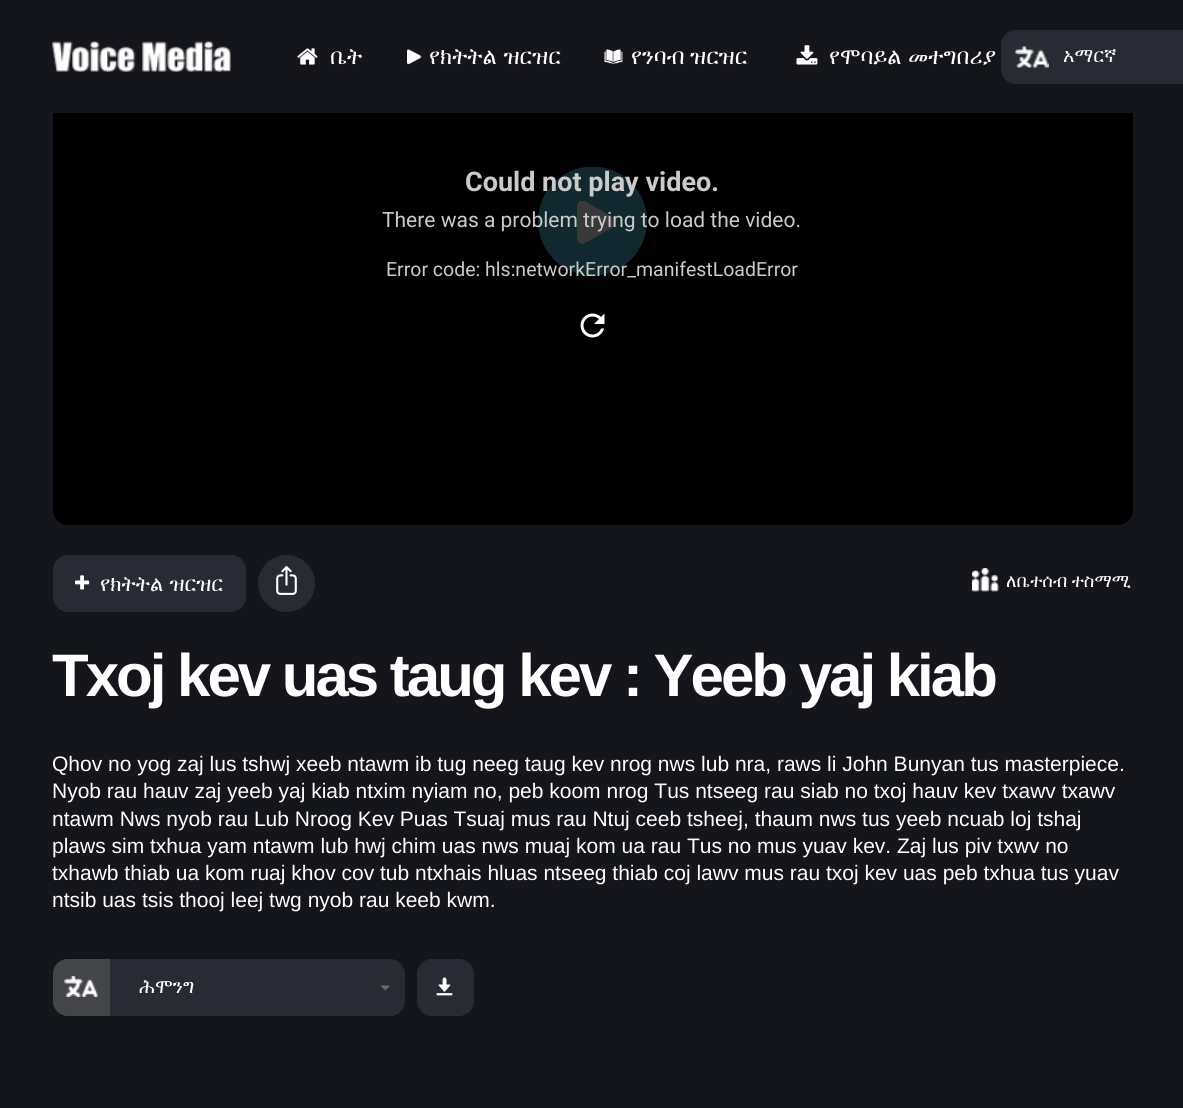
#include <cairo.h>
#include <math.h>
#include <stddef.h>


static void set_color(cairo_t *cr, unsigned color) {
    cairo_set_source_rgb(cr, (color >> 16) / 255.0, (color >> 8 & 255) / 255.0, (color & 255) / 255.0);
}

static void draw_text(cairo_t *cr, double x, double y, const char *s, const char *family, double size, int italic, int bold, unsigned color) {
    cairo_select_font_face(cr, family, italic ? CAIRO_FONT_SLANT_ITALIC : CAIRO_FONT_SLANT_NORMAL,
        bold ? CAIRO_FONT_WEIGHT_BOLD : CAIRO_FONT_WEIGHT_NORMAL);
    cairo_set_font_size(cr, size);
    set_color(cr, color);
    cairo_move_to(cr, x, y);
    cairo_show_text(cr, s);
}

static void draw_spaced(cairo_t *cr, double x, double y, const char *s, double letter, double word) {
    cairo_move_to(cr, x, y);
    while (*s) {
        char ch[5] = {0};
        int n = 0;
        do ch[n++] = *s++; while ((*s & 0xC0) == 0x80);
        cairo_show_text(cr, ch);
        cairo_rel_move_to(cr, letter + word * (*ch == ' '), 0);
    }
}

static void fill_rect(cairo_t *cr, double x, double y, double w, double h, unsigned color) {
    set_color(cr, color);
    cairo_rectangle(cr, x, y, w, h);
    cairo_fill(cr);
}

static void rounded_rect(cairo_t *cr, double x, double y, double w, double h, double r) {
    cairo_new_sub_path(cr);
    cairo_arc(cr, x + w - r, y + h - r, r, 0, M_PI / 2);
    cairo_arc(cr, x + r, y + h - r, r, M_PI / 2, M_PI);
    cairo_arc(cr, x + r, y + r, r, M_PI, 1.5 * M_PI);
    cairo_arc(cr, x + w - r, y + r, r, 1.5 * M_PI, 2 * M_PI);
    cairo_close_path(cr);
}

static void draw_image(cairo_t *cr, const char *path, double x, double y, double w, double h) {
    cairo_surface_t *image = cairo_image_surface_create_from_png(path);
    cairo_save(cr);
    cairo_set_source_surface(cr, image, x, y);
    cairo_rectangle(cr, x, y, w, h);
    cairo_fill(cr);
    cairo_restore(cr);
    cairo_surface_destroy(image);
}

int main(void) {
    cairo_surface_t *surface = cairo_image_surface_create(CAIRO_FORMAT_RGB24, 1183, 1108);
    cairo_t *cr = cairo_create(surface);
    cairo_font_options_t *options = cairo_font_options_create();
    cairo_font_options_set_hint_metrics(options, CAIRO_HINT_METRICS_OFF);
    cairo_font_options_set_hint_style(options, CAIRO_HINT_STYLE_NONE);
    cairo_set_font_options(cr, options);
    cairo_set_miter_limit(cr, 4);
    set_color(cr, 0x15161C);
    cairo_paint(cr);
    set_color(cr, 0x000000);
    rounded_rect(cr, 53, -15, 1080, 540, 15);
    cairo_fill(cr);
    cairo_save(cr);
    cairo_rectangle(cr, 53, 167, 1080, 109);
    cairo_clip(cr);
    set_color(cr, 0x3A8699);
    cairo_arc(cr, 592.5, 221, 54.5, 0, 2 * M_PI);
    cairo_fill(cr);
    cairo_restore(cr);
    set_color(cr, 0xBFBFBF);
    cairo_new_path(cr);
    cairo_move_to(cr, 577, 238);
    cairo_curve_to(cr, 577, 240, 578, 242, 580, 243);
    cairo_curve_to(cr, 581, 244, 583, 244, 585, 243);
    cairo_line_to(cr, 614, 227);
    cairo_curve_to(cr, 615, 226, 616, 224, 616, 222);
    cairo_curve_to(cr, 616, 220, 615, 219, 614, 218);
    cairo_line_to(cr, 585, 201);
    cairo_curve_to(cr, 583, 201, 581, 201, 580, 201);
    cairo_curve_to(cr, 578, 202, 577, 204, 577, 206);
    cairo_close_path(cr);
    cairo_fill(cr);
    cairo_set_source_rgba(cr, 0, 0, 0, 0.7);
    rounded_rect(cr, 53, -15, 1080, 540, 15);
    cairo_fill(cr);
    fill_rect(cr, 53, 0, 1080, 113, 0x15161C);
    draw_image(cr, "assets/img1.png", 52, 41, 179, 31);
    draw_image(cr, "assets/img2.png", 297, 48, 21, 17);
    draw_text(cr, 330, 64, "ቤት", "FreeSerif", 22.5, 0, 0, 0xFFFFFF);
    draw_image(cr, "assets/img3.png", 407, 49, 15, 16);
    draw_spaced(cr, 429, 64, "የክትትል ዝርዝር", 0, 1);
    draw_image(cr, "assets/img4.png", 604, 49, 19, 15);
    draw_text(cr, 631, 64, "የንባብ", "FreeSerif", 22.5, 0, 0, 0xFFFFFF);
    draw_text(cr, 690, 64, "ዝርዝር", "FreeSerif", 22.5, 0, 0, 0xFFFFFF);
    draw_image(cr, "assets/img5.png", 796, 45, 22, 20);
    draw_text(cr, 829, 64, "የሞባይል", "FreeSerif", 22.5, 0, 0, 0xFFFFFF);
    draw_text(cr, 908, 64, "መተግበሪያ", "FreeSerif", 22.5, 0, 0, 0xFFFFFF);
    set_color(cr, 0x282A34);
    rounded_rect(cr, 1001, 30, 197, 54, 15);
    cairo_fill(cr);
    draw_image(cr, "assets/img6.png", 1015, 46, 34, 22);
    draw_text(cr, 1063, 62, "አማርኛ", "FreeSerif", 19.5, 0, 0, 0xFFFFFF);
    draw_text(cr, 465, 191, "Could not play video.", "Roboto", 27, 0, 1, 0xCCCACA);
    draw_text(cr, 382, 227, "There was a problem trying to load the video.", "Roboto", 21, 0, 0, 0xCCCACA);
    draw_text(cr, 386, 276, "Error code: hls:networkError_manifestLoadError", "Roboto", 19.5, 0, 0, 0xCCCACA);
    draw_image(cr, "assets/img7.png", 580, 313, 25, 25);
    set_color(cr, 0x282A34);
    rounded_rect(cr, 53, 555, 193, 57, 15);
    cairo_fill(cr);
    draw_image(cr, "assets/img8.png", 75, 575, 15, 15);
    cairo_select_font_face(cr, "FreeSerif", CAIRO_FONT_SLANT_NORMAL, CAIRO_FONT_WEIGHT_NORMAL);
    cairo_set_font_size(cr, 21);
    set_color(cr, 0xFFFFFF);
    draw_spaced(cr, 100, 591, "የክትትል ዝርዝር", 0, 1);
    set_color(cr, 0x282A34);
    cairo_new_path(cr);
    cairo_arc(cr, 286.5, 583.5, 28.5, 0, 2 * M_PI);
    cairo_fill(cr);
    draw_image(cr, "assets/img9.png", 276, 566, 21, 29);
    draw_image(cr, "assets/img10.png", 972, 568, 27, 24);
    draw_text(cr, 1006, 587, "ለቤተሰብ ተስማሚ", "FreeSerif", 18, 0, 0, 0xFFFFFF);
    cairo_select_font_face(cr, "Liberation Sans", CAIRO_FONT_SLANT_NORMAL, CAIRO_FONT_WEIGHT_BOLD);
    cairo_set_font_size(cr, 60);
    draw_spaced(cr, 52, 696, "Txoj kev uas taug kev : Yeeb yaj kiab", -3, 0);
    draw_text(cr, 52, 771, "Qhov no yog zaj lus tshwj xeeb ntawm ib tug neeg taug kev nrog nws lub nra, raws li John Bunyan tus masterpiece.", "Liberation Sans", 21, 0, 0, 0xFFFFFF);
    draw_text(cr, 52, 798, "Nyob rau hauv zaj yeeb yaj kiab ntxim nyiam no, peb koom nrog Tus ntseeg rau siab no txoj hauv kev txawv txawv", "Liberation Sans", 21, 0, 0, 0xFFFFFF);
    draw_text(cr, 52, 826, "ntawm Nws nyob rau Lub Nroog Kev Puas Tsuaj mus rau Ntuj ceeb tsheej, thaum nws tus yeeb ncuab loj tshaj", "Liberation Sans", 21, 0, 0, 0xFFFFFF);
    draw_text(cr, 52, 853, "plaws sim txhua yam ntawm lub hwj chim uas nws muaj kom ua rau Tus no mus yuav kev. Zaj lus piv txwv no", "Liberation Sans", 21, 0, 0, 0xFFFFFF);
    draw_text(cr, 52, 880, "txhawb thiab ua kom ruaj khov cov tub ntxhais hluas ntseeg thiab coj lawv mus rau txoj kev uas peb txhua tus yuav", "Liberation Sans", 21, 0, 0, 0xFFFFFF);
    draw_text(cr, 52, 907, "ntsib uas tsis thooj leej twg nyob rau keeb kwm.", "Liberation Sans", 21, 0, 0, 0xFFFFFF);
    set_color(cr, 0x282A34);
    rounded_rect(cr, 53, 959, 352, 57, 15);
    cairo_fill(cr);
    set_color(cr, 0x444549);
    cairo_new_path(cr);
    cairo_move_to(cr, 68, 959);
    cairo_line_to(cr, 110, 959);
    cairo_line_to(cr, 110, 1016);
    cairo_line_to(cr, 68, 1016);
    cairo_curve_to(cr, 59.5, 1016, 53, 1009.5, 53, 1001);
    cairo_line_to(cr, 53, 974);
    cairo_curve_to(cr, 53, 965.5, 59.5, 959, 68, 959);
    cairo_close_path(cr);
    cairo_fill(cr);
    draw_image(cr, "assets/img11.png", 64, 976, 34, 21);
    draw_text(cr, 139, 993, "ሕሞንግ", "FreeSerif", 19.5, 0, 0, 0xFFFFFF);
    draw_image(cr, "assets/img12.png", 381, 985, 9, 6);
    set_color(cr, 0x282A34);
    rounded_rect(cr, 417, 959, 57, 57, 15);
    cairo_fill(cr);
    draw_image(cr, "assets/img13.png", 436, 977, 17, 19);
    cairo_surface_write_to_png(surface, "output.png");
    cairo_font_options_destroy(options);
    cairo_destroy(cr);
    cairo_surface_destroy(surface);
    return 0;
}
